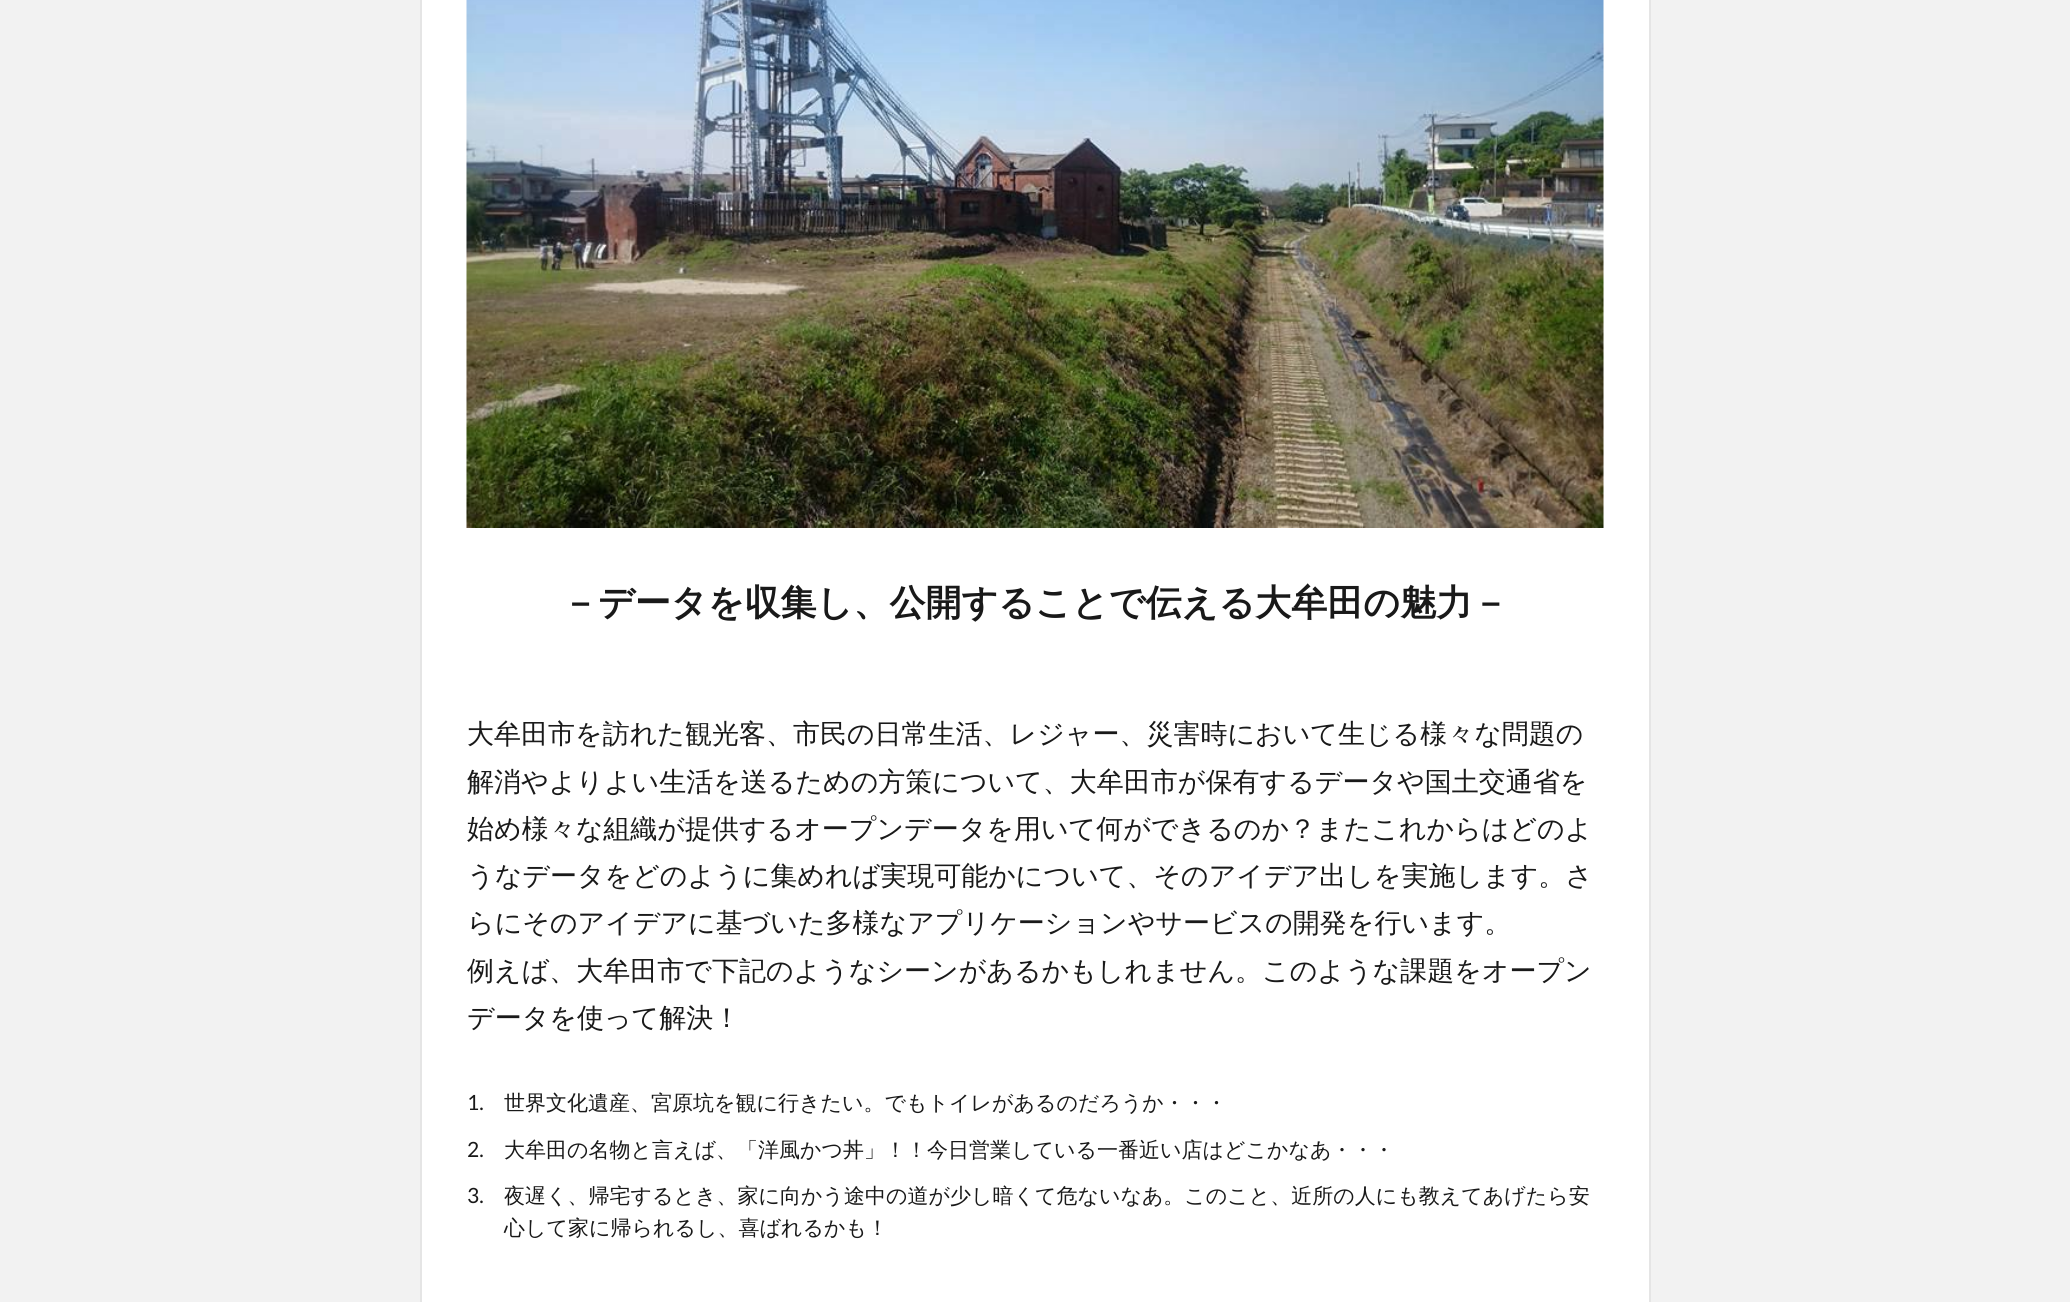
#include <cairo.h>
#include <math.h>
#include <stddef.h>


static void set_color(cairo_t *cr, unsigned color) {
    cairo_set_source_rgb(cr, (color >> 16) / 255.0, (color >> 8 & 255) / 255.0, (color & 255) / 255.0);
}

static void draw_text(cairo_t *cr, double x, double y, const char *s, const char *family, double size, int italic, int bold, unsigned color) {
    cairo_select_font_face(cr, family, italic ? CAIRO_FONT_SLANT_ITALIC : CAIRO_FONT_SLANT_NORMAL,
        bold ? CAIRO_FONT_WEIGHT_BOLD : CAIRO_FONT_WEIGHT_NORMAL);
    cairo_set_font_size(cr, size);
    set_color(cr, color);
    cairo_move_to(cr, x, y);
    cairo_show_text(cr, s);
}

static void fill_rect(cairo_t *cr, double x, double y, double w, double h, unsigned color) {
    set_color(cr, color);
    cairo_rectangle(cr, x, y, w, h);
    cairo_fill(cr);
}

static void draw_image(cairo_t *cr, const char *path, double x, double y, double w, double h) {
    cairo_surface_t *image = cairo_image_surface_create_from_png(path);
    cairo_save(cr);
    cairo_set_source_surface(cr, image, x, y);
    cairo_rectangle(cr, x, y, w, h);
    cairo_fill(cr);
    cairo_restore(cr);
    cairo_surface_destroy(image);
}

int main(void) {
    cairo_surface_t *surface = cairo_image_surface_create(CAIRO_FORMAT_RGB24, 2070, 1302);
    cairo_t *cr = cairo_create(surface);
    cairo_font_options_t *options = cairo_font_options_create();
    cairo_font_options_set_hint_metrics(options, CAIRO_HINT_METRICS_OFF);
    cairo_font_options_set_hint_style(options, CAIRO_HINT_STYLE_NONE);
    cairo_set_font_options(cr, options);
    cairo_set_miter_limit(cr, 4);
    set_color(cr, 0xF2F2F2);
    cairo_paint(cr);
    fill_rect(cr, 422, 0, 1227, 1302, 0xFFFFFF);
    fill_rect(cr, 1649, 0, 2, 1302, 0xE5E5E5);
    fill_rect(cr, 420, 0, 2, 1302, 0xE5E5E5);
    draw_image(cr, "assets/img1.png", 466, 0, 1138, 528);
    draw_text(cr, 562, 615, "－データを収集し、公開することで伝える大牟田の魅力－", "WenQuanYi Zen Hei", 36, 0, 1, 0x191919);
    draw_text(cr, 467, 743, "大牟田市を訪れた観光客、市民の日常生活、レジャー、災害時において生じる様々な問題の", "WenQuanYi Zen Hei Medium", 27, 0, 0, 0x191919);
    draw_text(cr, 467, 791, "解消やよりよい生活を送るための方策について、大牟田市が保有するデータや国土交通省を", "WenQuanYi Zen Hei Medium", 27, 0, 0, 0x191919);
    draw_text(cr, 467, 838, "始め様々な組織が提供するオープンデータを用いて何ができるのか？またこれからはどのよ", "WenQuanYi Zen Hei Medium", 27, 0, 0, 0x191919);
    draw_text(cr, 467, 885, "うなデータをどのように集めれば実現可能かについて、そのアイデア出しを実施します。さ", "WenQuanYi Zen Hei Medium", 27, 0, 0, 0x191919);
    draw_text(cr, 467, 932, "らにそのアイデアに基づいた多様なアプリケーションやサービスの開発を行います。", "WenQuanYi Zen Hei Medium", 27, 0, 0, 0x191919);
    draw_text(cr, 467, 980, "例えば、大牟田市で下記のようなシーンがあるかもしれません。このような課題をオープン", "WenQuanYi Zen Hei Medium", 27, 0, 0, 0x191919);
    draw_text(cr, 467, 1027, "データを使って解決！", "WenQuanYi Zen Hei Medium", 27, 0, 0, 0x191919);
    draw_text(cr, 467, 1110, "1.", "Lato", 21, 0, 0, 0x191919);
    draw_text(cr, 504, 1110, "世界文化遺産、宮原坑を観に行きたい。でもトイレがあるのだろうか・・・", "WenQuanYi Zen Hei Medium", 21, 0, 0, 0x191919);
    draw_text(cr, 467, 1157, "2.", "Lato", 21, 0, 0, 0x191919);
    draw_text(cr, 504, 1157, "大牟田の名物と言えば、「洋風かつ丼」！！今日営業している一番近い店はどこかなあ・・・", "WenQuanYi Zen Hei Medium", 21, 0, 0, 0x191919);
    draw_text(cr, 467, 1203, "3.", "Lato", 21, 0, 0, 0x191919);
    draw_text(cr, 504, 1203, "夜遅く、帰宅するとき、家に向かう途中の道が少し暗くて危ないなあ。このこと、近所の人にも教えてあげたら安", "WenQuanYi Zen Hei Medium", 21, 0, 0, 0x191919);
    draw_text(cr, 504, 1235, "心して家に帰られるし、喜ばれるかも！", "WenQuanYi Zen Hei Medium", 21, 0, 0, 0x191919);
    cairo_surface_write_to_png(surface, "output.png");
    cairo_font_options_destroy(options);
    cairo_destroy(cr);
    cairo_surface_destroy(surface);
    return 0;
}
